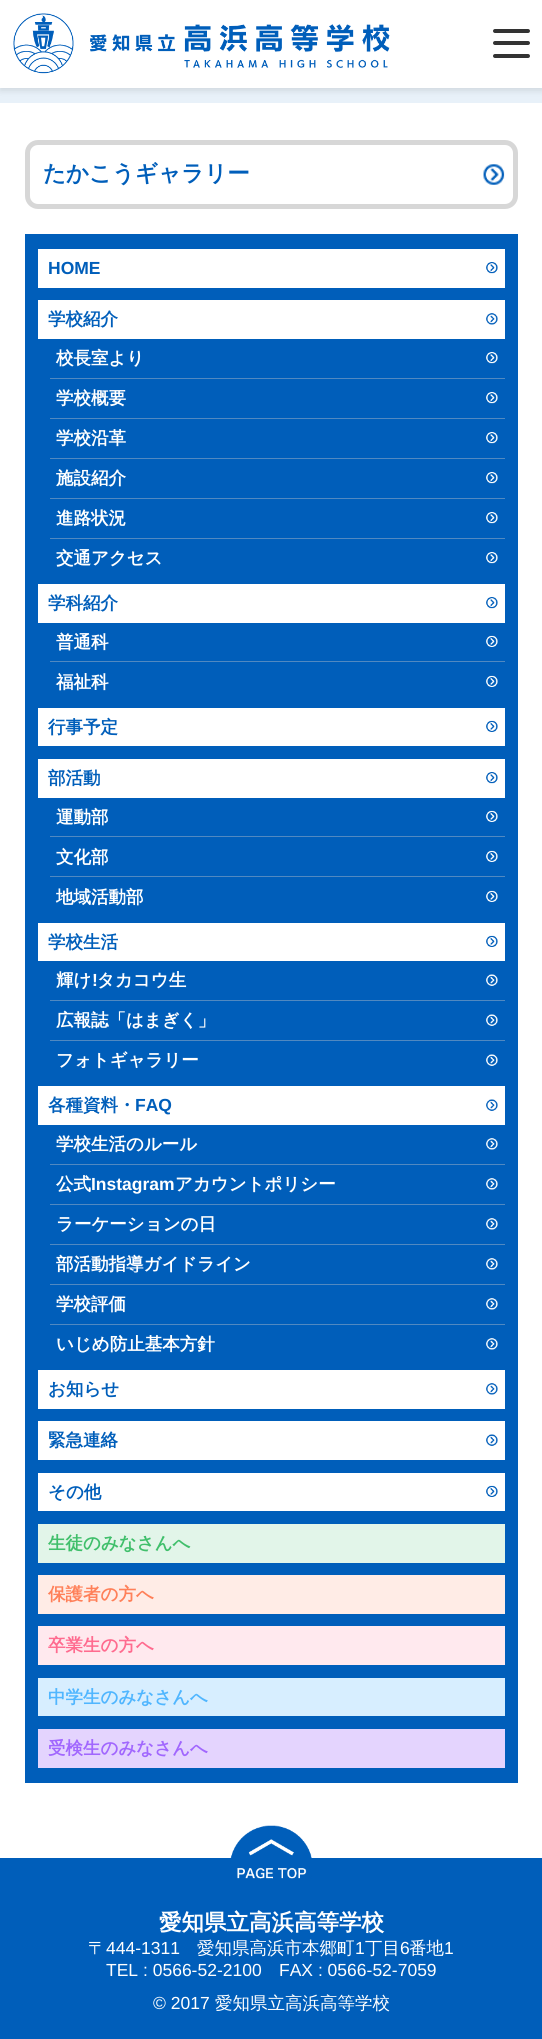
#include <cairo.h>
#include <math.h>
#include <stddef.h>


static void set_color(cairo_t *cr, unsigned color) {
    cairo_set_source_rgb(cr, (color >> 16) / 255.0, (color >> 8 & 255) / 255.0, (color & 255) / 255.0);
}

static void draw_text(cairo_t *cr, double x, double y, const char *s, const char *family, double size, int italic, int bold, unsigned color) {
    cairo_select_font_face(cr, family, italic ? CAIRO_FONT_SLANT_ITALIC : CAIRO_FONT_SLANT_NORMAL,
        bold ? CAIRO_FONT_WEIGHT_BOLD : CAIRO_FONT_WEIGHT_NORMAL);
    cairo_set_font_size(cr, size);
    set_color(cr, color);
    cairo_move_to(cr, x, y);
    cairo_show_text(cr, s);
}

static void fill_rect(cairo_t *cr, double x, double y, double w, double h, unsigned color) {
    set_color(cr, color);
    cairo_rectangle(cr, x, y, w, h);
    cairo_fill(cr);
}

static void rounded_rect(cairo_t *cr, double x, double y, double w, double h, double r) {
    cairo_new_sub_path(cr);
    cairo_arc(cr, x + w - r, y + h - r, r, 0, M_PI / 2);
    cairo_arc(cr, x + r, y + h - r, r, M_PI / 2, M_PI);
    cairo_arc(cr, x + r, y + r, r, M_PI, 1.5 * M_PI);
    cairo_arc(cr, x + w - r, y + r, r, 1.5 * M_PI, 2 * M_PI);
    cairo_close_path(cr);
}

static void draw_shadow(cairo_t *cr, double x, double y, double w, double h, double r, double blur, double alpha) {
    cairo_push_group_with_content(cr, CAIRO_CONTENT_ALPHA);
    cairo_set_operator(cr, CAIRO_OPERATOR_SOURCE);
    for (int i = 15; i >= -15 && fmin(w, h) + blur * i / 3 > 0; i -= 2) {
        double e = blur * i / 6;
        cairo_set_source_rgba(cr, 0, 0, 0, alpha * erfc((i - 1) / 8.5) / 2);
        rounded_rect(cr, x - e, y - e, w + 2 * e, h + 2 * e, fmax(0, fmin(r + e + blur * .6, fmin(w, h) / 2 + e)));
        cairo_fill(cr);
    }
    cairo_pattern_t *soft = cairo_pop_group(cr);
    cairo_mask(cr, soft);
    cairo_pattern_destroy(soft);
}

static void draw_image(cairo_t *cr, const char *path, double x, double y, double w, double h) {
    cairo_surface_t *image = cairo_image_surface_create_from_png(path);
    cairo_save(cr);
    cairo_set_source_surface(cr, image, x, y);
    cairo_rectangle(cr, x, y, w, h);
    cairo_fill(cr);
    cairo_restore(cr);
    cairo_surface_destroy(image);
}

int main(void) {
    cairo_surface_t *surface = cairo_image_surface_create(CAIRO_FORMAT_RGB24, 542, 2039);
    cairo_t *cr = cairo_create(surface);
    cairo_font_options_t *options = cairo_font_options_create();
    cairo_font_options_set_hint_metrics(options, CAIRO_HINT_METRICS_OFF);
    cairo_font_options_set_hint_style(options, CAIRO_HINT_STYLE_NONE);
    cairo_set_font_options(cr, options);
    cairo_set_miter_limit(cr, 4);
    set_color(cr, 0xFFFFFF);
    cairo_paint(cr);
    fill_rect(cr, 0, 88, 542, 15, 0xE8F1F9);
    set_color(cr, 0x000000);
    draw_shadow(cr, 0, 4, 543, 87, 0, 3, 0.1);
    fill_rect(cr, 0, 0, 542, 88, 0xFFFFFF);
    draw_image(cr, "assets/img1.png", 13, 13, 377, 61);
    set_color(cr, 0x333333);
    rounded_rect(cr, 493, 29, 37, 4, 2);
    cairo_fill(cr);
    rounded_rect(cr, 493, 41, 37, 4, 2);
    cairo_fill(cr);
    rounded_rect(cr, 493, 54, 37, 4, 2);
    cairo_fill(cr);
    draw_image(cr, "assets/img2.png", 483, 164, 22, 21);
    rounded_rect(cr, 27.5, 142.5, 488, 64, 10.5);
    set_color(cr, 0xD7D7D7);
    cairo_set_line_width(cr, 5);
    cairo_stroke(cr);
    draw_text(cr, 43, 181, "たかこうギャラリー", "WenQuanYi Zen Hei", 22.5, 0, 1, 0x005EBA);
    fill_rect(cr, 25, 234, 493, 1549, 0x005EBA);
    fill_rect(cr, 38, 249, 467, 39, 0xFFFFFF);
    draw_image(cr, "assets/img3.png", 486, 262, 12, 12);
    draw_text(cr, 48, 274, "HOME", "Liberation Sans", 17.5, 0, 1, 0x005EBA);
    fill_rect(cr, 38, 300, 467, 39, 0xFFFFFF);
    draw_image(cr, "assets/img4.png", 486, 313, 12, 12);
    draw_text(cr, 48, 325, "学校紹介", "WenQuanYi Zen Hei", 17.5, 0, 1, 0x005EBA);
    fill_rect(cr, 50, 378, 455, 1, 0x5189C1);
    draw_image(cr, "assets/img5.png", 486, 352, 12, 12);
    draw_text(cr, 56, 364, "校長室より", "WenQuanYi Zen Hei", 17.5, 0, 1, 0xFFFFFF);
    fill_rect(cr, 50, 418, 455, 1, 0x5189C1);
    draw_image(cr, "assets/img5.png", 486, 392, 12, 12);
    draw_text(cr, 56, 404, "学校概要", "WenQuanYi Zen Hei", 17.5, 0, 1, 0xFFFFFF);
    fill_rect(cr, 50, 458, 455, 1, 0x5189C1);
    draw_image(cr, "assets/img6.png", 486, 432, 12, 12);
    draw_text(cr, 56, 444, "学校沿革", "WenQuanYi Zen Hei", 17.5, 0, 1, 0xFFFFFF);
    fill_rect(cr, 50, 498, 455, 1, 0x5189C1);
    draw_image(cr, "assets/img5.png", 486, 472, 12, 12);
    draw_text(cr, 56, 484, "施設紹介", "WenQuanYi Zen Hei", 17.5, 0, 1, 0xFFFFFF);
    fill_rect(cr, 50, 538, 455, 1, 0x5189C1);
    draw_image(cr, "assets/img5.png", 486, 512, 12, 12);
    draw_text(cr, 56, 524, "進路状況", "WenQuanYi Zen Hei", 17.5, 0, 1, 0xFFFFFF);
    draw_image(cr, "assets/img5.png", 486, 552, 12, 12);
    draw_text(cr, 56, 564, "交通アクセス", "WenQuanYi Zen Hei", 17.5, 0, 1, 0xFFFFFF);
    fill_rect(cr, 38, 584, 467, 39, 0xFFFFFF);
    draw_image(cr, "assets/img3.png", 486, 597, 12, 12);
    draw_text(cr, 48, 609, "学科紹介", "WenQuanYi Zen Hei", 17.5, 0, 1, 0x005EBA);
    fill_rect(cr, 50, 661, 455, 1, 0x5189C1);
    draw_image(cr, "assets/img7.png", 486, 635, 12, 12);
    draw_text(cr, 56, 648, "普通科", "WenQuanYi Zen Hei", 17.5, 0, 1, 0xFFFFFF);
    draw_image(cr, "assets/img7.png", 486, 675, 12, 12);
    draw_text(cr, 56, 688, "福祉科", "WenQuanYi Zen Hei", 17.5, 0, 1, 0xFFFFFF);
    fill_rect(cr, 38, 708, 467, 38, 0xFFFFFF);
    draw_image(cr, "assets/img8.png", 486, 720, 12, 12);
    draw_text(cr, 48, 733, "行事予定", "WenQuanYi Zen Hei", 17.5, 0, 1, 0x005EBA);
    fill_rect(cr, 38, 759, 467, 39, 0xFFFFFF);
    draw_image(cr, "assets/img3.png", 486, 772, 12, 12);
    draw_text(cr, 48, 784, "部活動", "WenQuanYi Zen Hei", 17.5, 0, 1, 0x005EBA);
    fill_rect(cr, 50, 836, 455, 1, 0x5189C1);
    draw_image(cr, "assets/img7.png", 486, 810, 12, 12);
    draw_text(cr, 56, 823, "運動部", "WenQuanYi Zen Hei", 17.5, 0, 1, 0xFFFFFF);
    fill_rect(cr, 50, 876, 455, 1, 0x5189C1);
    draw_image(cr, "assets/img7.png", 486, 850, 12, 12);
    draw_text(cr, 56, 863, "文化部", "WenQuanYi Zen Hei", 17.5, 0, 1, 0xFFFFFF);
    draw_image(cr, "assets/img7.png", 486, 890, 12, 12);
    draw_text(cr, 56, 903, "地域活動部", "WenQuanYi Zen Hei", 17.5, 0, 1, 0xFFFFFF);
    fill_rect(cr, 38, 923, 467, 38, 0xFFFFFF);
    draw_image(cr, "assets/img8.png", 486, 935, 12, 12);
    draw_text(cr, 48, 948, "学校生活", "WenQuanYi Zen Hei", 17.5, 0, 1, 0x005EBA);
    fill_rect(cr, 50, 1000, 455, 1, 0x5189C1);
    draw_image(cr, "assets/img9.png", 486, 974, 12, 12);
    draw_text(cr, 56, 986, "輝け", "WenQuanYi Zen Hei", 17.5, 0, 1, 0xFFFFFF);
    draw_text(cr, 92, 986, "!", "Liberation Sans", 17.5, 0, 1, 0xFFFFFF);
    draw_text(cr, 97, 986, "タカコウ生", "WenQuanYi Zen Hei", 17.5, 0, 1, 0xFFFFFF);
    fill_rect(cr, 50, 1040, 455, 1, 0x5189C1);
    draw_image(cr, "assets/img10.png", 486, 1014, 12, 12);
    draw_text(cr, 56, 1026, "広報誌「はまぎく」", "WenQuanYi Zen Hei", 17.5, 0, 1, 0xFFFFFF);
    draw_image(cr, "assets/img9.png", 486, 1054, 12, 12);
    draw_text(cr, 56, 1066, "フォトギャラリー", "WenQuanYi Zen Hei", 17.5, 0, 1, 0xFFFFFF);
    fill_rect(cr, 38, 1086, 467, 39, 0xFFFFFF);
    draw_image(cr, "assets/img11.png", 486, 1099, 12, 12);
    draw_text(cr, 48, 1111, "各種資料・", "WenQuanYi Zen Hei", 17.5, 0, 1, 0x005EBA);
    draw_text(cr, 135, 1111, "FAQ", "Liberation Sans", 17.5, 0, 1, 0x005EBA);
    fill_rect(cr, 50, 1164, 455, 1, 0x5189C1);
    draw_image(cr, "assets/img12.png", 486, 1138, 12, 12);
    draw_text(cr, 56, 1150, "学校生活のルール", "WenQuanYi Zen Hei", 17.5, 0, 1, 0xFFFFFF);
    fill_rect(cr, 50, 1204, 455, 1, 0x5189C1);
    draw_image(cr, "assets/img12.png", 486, 1178, 12, 12);
    draw_text(cr, 56, 1190, "公式", "WenQuanYi Zen Hei", 17.5, 0, 1, 0xFFFFFF);
    draw_text(cr, 91, 1190, "Instagram", "Liberation Sans", 17.5, 0, 1, 0xFFFFFF);
    draw_text(cr, 175, 1190, "アカウントポリシー", "WenQuanYi Zen Hei", 17.5, 0, 1, 0xFFFFFF);
    fill_rect(cr, 50, 1244, 455, 1, 0x5189C1);
    draw_image(cr, "assets/img12.png", 486, 1218, 12, 12);
    draw_text(cr, 56, 1230, "ラーケーションの日", "WenQuanYi Zen Hei", 17.5, 0, 1, 0xFFFFFF);
    fill_rect(cr, 50, 1284, 455, 1, 0x5189C1);
    draw_image(cr, "assets/img12.png", 486, 1258, 12, 12);
    draw_text(cr, 56, 1270, "部活動指導ガイドライン", "WenQuanYi Zen Hei", 17.5, 0, 1, 0xFFFFFF);
    fill_rect(cr, 50, 1324, 455, 1, 0x5189C1);
    draw_image(cr, "assets/img12.png", 486, 1298, 12, 12);
    draw_text(cr, 56, 1310, "学校評価", "WenQuanYi Zen Hei", 17.5, 0, 1, 0xFFFFFF);
    draw_image(cr, "assets/img12.png", 486, 1338, 12, 12);
    draw_text(cr, 56, 1350, "いじめ防止基本方針", "WenQuanYi Zen Hei", 17.5, 0, 1, 0xFFFFFF);
    fill_rect(cr, 38, 1370, 467, 39, 0xFFFFFF);
    draw_image(cr, "assets/img4.png", 486, 1383, 12, 12);
    draw_text(cr, 48, 1395, "お知らせ", "WenQuanYi Zen Hei", 17.5, 0, 1, 0x005EBA);
    fill_rect(cr, 38, 1421, 467, 39, 0xFFFFFF);
    draw_image(cr, "assets/img11.png", 486, 1434, 12, 12);
    draw_text(cr, 48, 1446, "緊急連絡", "WenQuanYi Zen Hei", 17.5, 0, 1, 0x005EBA);
    fill_rect(cr, 38, 1473, 467, 38, 0xFFFFFF);
    draw_image(cr, "assets/img8.png", 486, 1485, 12, 12);
    draw_text(cr, 48, 1498, "その他", "WenQuanYi Zen Hei", 17.5, 0, 1, 0x005EBA);
    fill_rect(cr, 38, 1524, 467, 39, 0xE2F5E9);
    draw_text(cr, 48, 1549, "生徒のみなさんへ", "WenQuanYi Zen Hei", 17.5, 0, 1, 0x40BF6B);
    fill_rect(cr, 38, 1575, 467, 39, 0xFFECE6);
    draw_text(cr, 48, 1600, "保護者の方へ", "WenQuanYi Zen Hei", 17.5, 0, 1, 0xFF8059);
    fill_rect(cr, 38, 1626, 467, 39, 0xFFE9EE);
    draw_text(cr, 48, 1651, "卒業生の方へ", "WenQuanYi Zen Hei", 17.5, 0, 1, 0xFF6B8F);
    fill_rect(cr, 38, 1678, 467, 38, 0xD7EEFF);
    draw_text(cr, 48, 1703, "中学生のみなさんへ", "WenQuanYi Zen Hei", 17.5, 0, 1, 0x50B6FF);
    fill_rect(cr, 38, 1729, 467, 39, 0xE4D4FE);
    draw_text(cr, 48, 1754, "受検生のみなさんへ", "WenQuanYi Zen Hei", 17.5, 0, 1, 0xA167FE);
    fill_rect(cr, 0, 1858, 542, 181, 0x005EBA);
    draw_image(cr, "assets/img13.png", 230, 1825, 82, 54);
    draw_text(cr, 159, 1930, "愛知県立高浜高等学校", "WenQuanYi Zen Hei", 22.5, 0, 1, 0xFFFFFF);
    draw_text(cr, 88, 1954, "〒", "WenQuanYi Zen Hei Medium", 17.5, 0, 0, 0xFFFFFF);
    draw_text(cr, 106, 1954, "444-1311", "Liberation Sans", 17.5, 0, 0, 0xFFFFFF);
    draw_text(cr, 197, 1954, "愛知県高浜市本郷町", "WenQuanYi Zen Hei Medium", 17.5, 0, 0, 0xFFFFFF);
    draw_text(cr, 355, 1954, "1", "Liberation Sans", 17.5, 0, 0, 0xFFFFFF);
    draw_text(cr, 365, 1954, "丁目", "WenQuanYi Zen Hei Medium", 17.5, 0, 0, 0xFFFFFF);
    draw_text(cr, 400, 1954, "6", "Liberation Sans", 17.5, 0, 0, 0xFFFFFF);
    draw_text(cr, 409, 1954, "番地", "WenQuanYi Zen Hei Medium", 17.5, 0, 0, 0xFFFFFF);
    draw_text(cr, 444, 1954, "1", "Liberation Sans", 17.5, 0, 0, 0xFFFFFF);
    draw_text(cr, 106, 1976, "TEL : 0566-52-2100", "Liberation Sans", 17.5, 0, 0, 0xFFFFFF);
    draw_text(cr, 279, 1976, "FAX : 0566-52-7059", "Liberation Sans", 17.5, 0, 0, 0xFFFFFF);
    draw_text(cr, 153, 2009, "© 2017", "Liberation Sans", 17.5, 0, 0, 0xFFFFFF);
    draw_text(cr, 215, 2009, "愛知県立高浜高等学校", "WenQuanYi Zen Hei Medium", 17.5, 0, 0, 0xFFFFFF);
    cairo_surface_write_to_png(surface, "output.png");
    cairo_font_options_destroy(options);
    cairo_destroy(cr);
    cairo_surface_destroy(surface);
    return 0;
}
